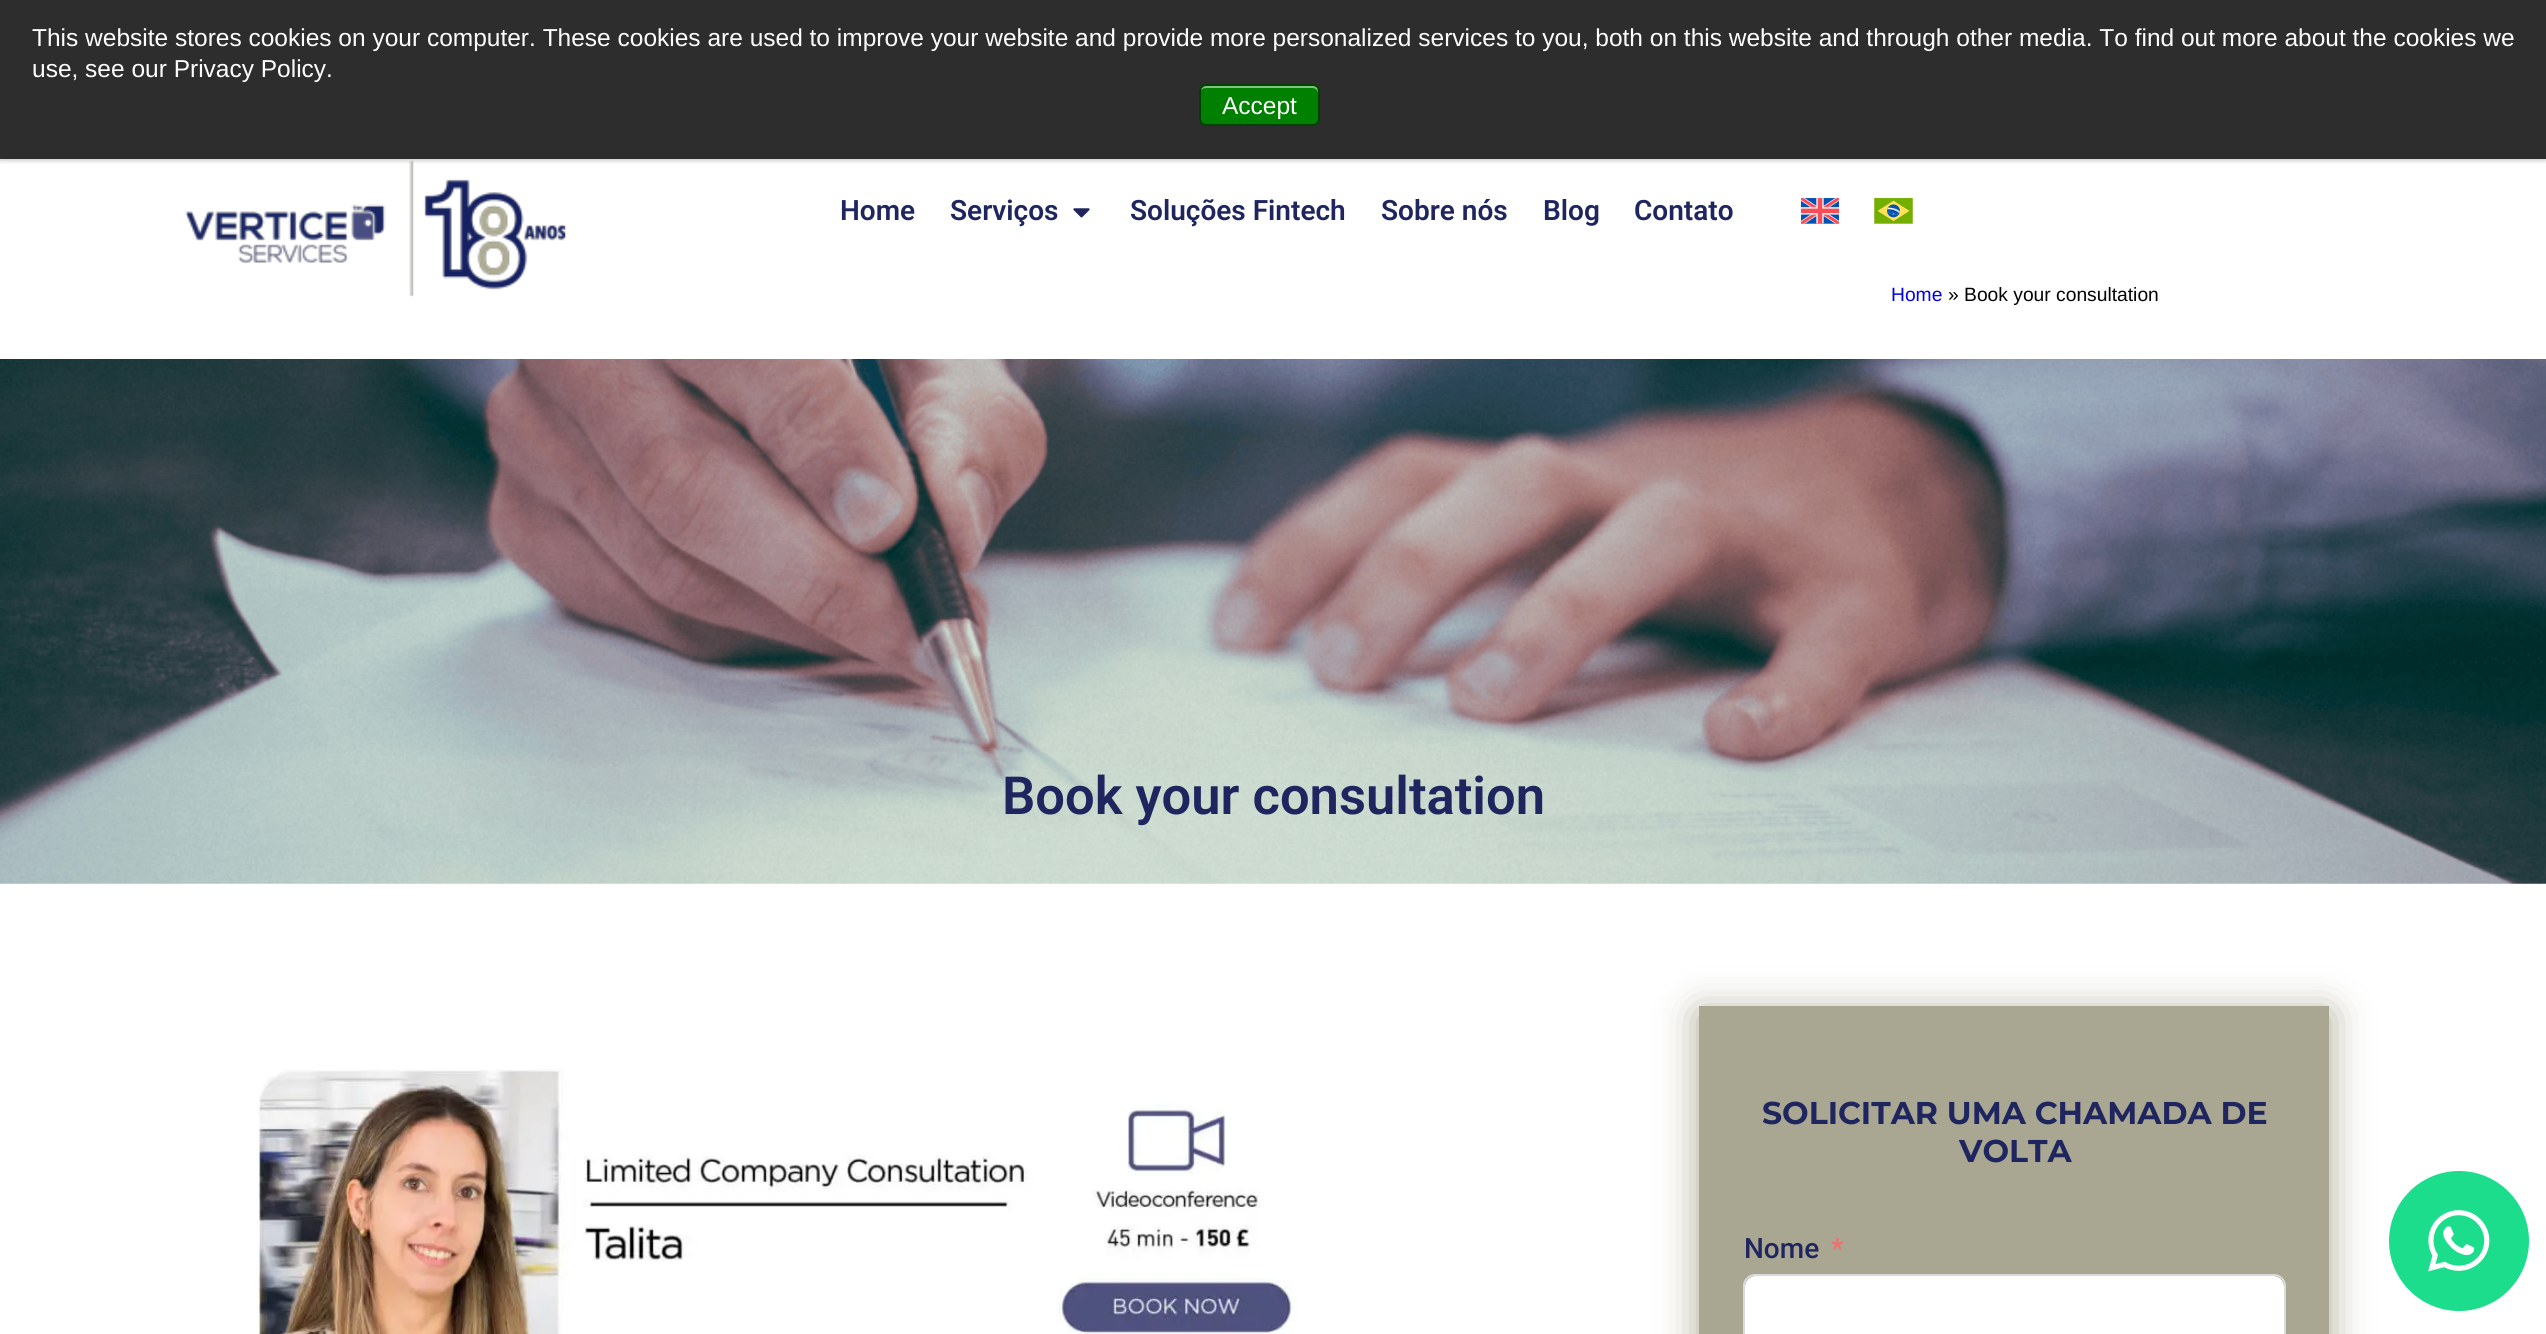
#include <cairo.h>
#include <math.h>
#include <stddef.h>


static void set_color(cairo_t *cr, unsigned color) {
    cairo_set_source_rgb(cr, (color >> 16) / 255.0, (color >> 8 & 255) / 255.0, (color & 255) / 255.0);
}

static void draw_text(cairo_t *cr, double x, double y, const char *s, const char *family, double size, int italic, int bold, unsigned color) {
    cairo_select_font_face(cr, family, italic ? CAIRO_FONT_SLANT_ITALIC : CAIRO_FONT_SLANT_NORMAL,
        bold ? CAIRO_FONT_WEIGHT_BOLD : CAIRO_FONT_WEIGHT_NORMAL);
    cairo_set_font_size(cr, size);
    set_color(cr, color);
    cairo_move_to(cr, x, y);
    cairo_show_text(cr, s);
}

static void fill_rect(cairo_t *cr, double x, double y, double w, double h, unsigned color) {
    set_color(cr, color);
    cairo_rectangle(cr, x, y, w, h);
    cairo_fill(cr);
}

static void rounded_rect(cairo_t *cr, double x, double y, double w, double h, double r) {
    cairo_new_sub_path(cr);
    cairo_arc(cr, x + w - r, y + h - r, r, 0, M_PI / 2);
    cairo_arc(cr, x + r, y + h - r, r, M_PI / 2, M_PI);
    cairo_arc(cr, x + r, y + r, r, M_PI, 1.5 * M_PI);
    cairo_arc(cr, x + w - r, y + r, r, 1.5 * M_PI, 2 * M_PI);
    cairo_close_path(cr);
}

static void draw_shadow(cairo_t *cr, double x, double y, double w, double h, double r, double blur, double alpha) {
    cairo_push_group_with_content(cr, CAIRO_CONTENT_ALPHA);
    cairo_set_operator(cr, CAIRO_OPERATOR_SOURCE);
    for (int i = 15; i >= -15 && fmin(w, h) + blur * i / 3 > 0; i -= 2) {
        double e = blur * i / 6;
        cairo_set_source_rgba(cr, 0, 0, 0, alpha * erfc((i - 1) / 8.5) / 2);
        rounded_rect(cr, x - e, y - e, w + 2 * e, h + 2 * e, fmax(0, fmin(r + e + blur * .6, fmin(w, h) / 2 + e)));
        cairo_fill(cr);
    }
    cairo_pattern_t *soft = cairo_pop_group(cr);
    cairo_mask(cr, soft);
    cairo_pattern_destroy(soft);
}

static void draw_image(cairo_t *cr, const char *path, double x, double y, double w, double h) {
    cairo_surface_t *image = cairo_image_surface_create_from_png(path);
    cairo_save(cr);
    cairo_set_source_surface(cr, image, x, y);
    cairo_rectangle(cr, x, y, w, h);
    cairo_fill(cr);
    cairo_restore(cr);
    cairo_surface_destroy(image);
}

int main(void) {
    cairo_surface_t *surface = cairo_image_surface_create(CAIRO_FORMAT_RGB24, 2546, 1334);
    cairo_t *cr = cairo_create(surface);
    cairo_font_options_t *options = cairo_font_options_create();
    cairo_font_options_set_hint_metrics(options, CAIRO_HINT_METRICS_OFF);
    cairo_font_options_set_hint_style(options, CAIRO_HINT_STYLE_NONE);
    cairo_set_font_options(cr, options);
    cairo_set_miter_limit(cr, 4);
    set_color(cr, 0xFFFFFF);
    cairo_paint(cr);
    draw_image(cr, "assets/img1.png", 185, 160, 381, 137);
    set_color(cr, 0x000000);
    draw_shadow(cr, 0, 2, 2546, 159, 0, 2, 0.2);
    fill_rect(cr, 0, 0, 2546, 159, 0x2D2D2D);
    draw_text(cr, 32, 46, "This website stores cookies on your computer. These cookies are used to improve your website and provide more personalized services to you, both on this website and through other media. To find out more about the cookies we", "Liberation Sans", 24.5, 0, 0, 0xFFFFFF);
    draw_text(cr, 32, 77, "use, see our Privacy Policy.", "Liberation Sans", 24.5, 0, 0, 0xFFFFFF);
    set_color(cr, 0x008000);
    rounded_rect(cr, 1199, 84, 121, 42, 7);
    cairo_fill(cr);
    set_color(cr, 0x80C080);
    cairo_new_path(cr);
    cairo_move_to(cr, 1206, 88);
    cairo_line_to(cr, 1312, 88);
    cairo_curve_to(cr, 1315, 88, 1318, 90, 1318, 93);
    cairo_line_to(cr, 1318, 91);
    cairo_curve_to(cr, 1318, 88, 1316, 86, 1313, 86);
    cairo_line_to(cr, 1206, 86);
    cairo_curve_to(cr, 1204, 86, 1201, 88, 1201, 90);
    cairo_curve_to(cr, 1202, 89, 1204, 88, 1206, 88);
    cairo_close_path(cr);
    cairo_fill(cr);
    rounded_rect(cr, 1200, 85, 119, 40, 6);
    cairo_set_source_rgba(cr, 0, 0, 0, 0.5);
    cairo_stroke(cr);
    draw_text(cr, 1222, 114, "Accept", "Liberation Sans", 24.5, 0, 0, 0xFFFFFF);
    draw_text(cr, 840, 220, "Home", "Roboto SemiBold", 28, 0, 0, 0x1F265F);
    draw_text(cr, 950, 220, "Serviços", "Roboto SemiBold", 28, 0, 0, 0x1F265F);
    draw_image(cr, "assets/img2.png", 1073, 208, 17, 10);
    draw_text(cr, 1130, 220, "Soluções Fintech", "Roboto SemiBold", 28, 0, 0, 0x1F265F);
    draw_text(cr, 1381, 220, "Sobre nós", "Roboto SemiBold", 28, 0, 0, 0x1F265F);
    draw_text(cr, 1543, 220, "Blog", "Roboto SemiBold", 28, 0, 0, 0x1F265F);
    draw_text(cr, 1634, 220, "Contato", "Roboto SemiBold", 28, 0, 0, 0x1F265F);
    draw_image(cr, "assets/img3.png", 1801, 198, 38, 26);
    draw_image(cr, "assets/img4.png", 1874, 198, 39, 26);
    draw_text(cr, 1891, 301, "Home", "Liberation Sans", 19.25, 0, 0, 0x0000EE);
    draw_text(cr, 1948, 301, "» Book your consultation", "Liberation Sans", 19.25, 0, 0, 0x020202);
    draw_image(cr, "assets/img5.png", 0, 359, 2546, 525);
    draw_text(cr, 1002, 814, "Book your consultation", "Roboto SemiBold", 52.5, 0, 0, 0x1F265F);
    draw_image(cr, "assets/img6.png", 257, 1069, 1040, 265);
    set_color(cr, 0xA9A791);
    draw_shadow(cr, 1699, 1013, 630, 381, 0, 20, 1);
    fill_rect(cr, 1699, 1006, 630, 328, 0xA9A791);
    draw_text(cr, 1762, 1124, "SOLICITAR UMA CHAMADA DE", "Montserrat", 31.5, 0, 1, 0x1F265F);
    draw_text(cr, 1959, 1162, "VOLTA", "Montserrat", 31.5, 0, 1, 0x1F265F);
    draw_text(cr, 1744, 1258, "Nome", "Roboto Medium", 28, 0, 0, 0x1F265F);
    draw_text(cr, 1831, 1258, "*", "Roboto Medium", 28, 0, 0, 0xF56C6C);
    set_color(cr, 0xFFFFFF);
    rounded_rect(cr, 1745, 1276, 539, 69, 11);
    cairo_fill(cr);
    rounded_rect(cr, 1744, 1275, 541, 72, 11);
    set_color(cr, 0xDADBDD);
    cairo_stroke(cr);
    set_color(cr, 0x1CDD8C);
    cairo_arc(cr, 2459, 1241, 70, 0, 2 * M_PI);
    cairo_fill(cr);
    draw_image(cr, "assets/img7.png", 2428, 1210, 62, 62);
    cairo_surface_write_to_png(surface, "output.png");
    cairo_font_options_destroy(options);
    cairo_destroy(cr);
    cairo_surface_destroy(surface);
    return 0;
}
